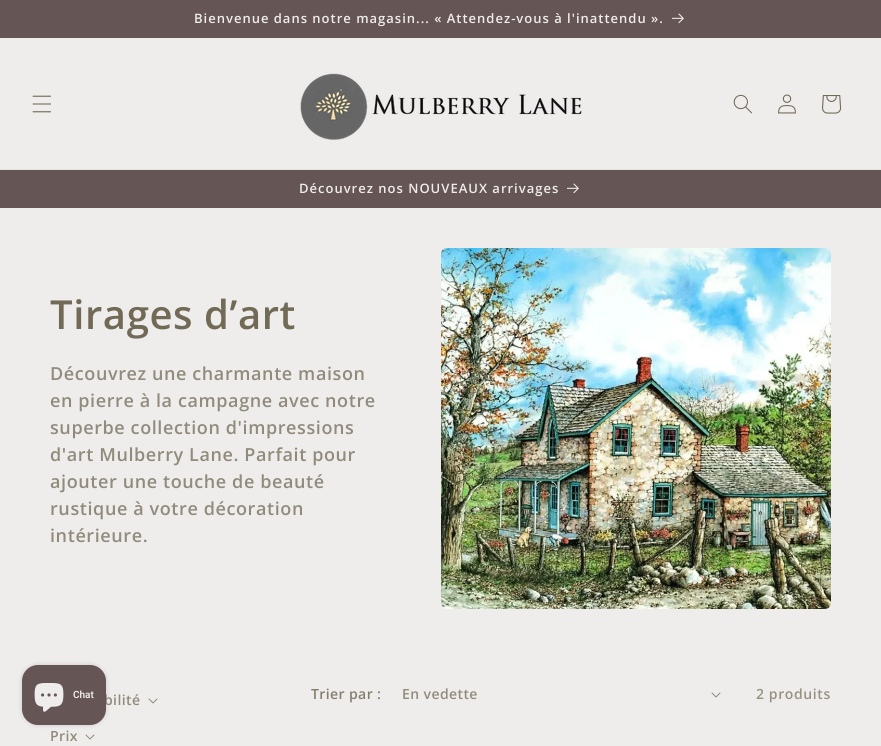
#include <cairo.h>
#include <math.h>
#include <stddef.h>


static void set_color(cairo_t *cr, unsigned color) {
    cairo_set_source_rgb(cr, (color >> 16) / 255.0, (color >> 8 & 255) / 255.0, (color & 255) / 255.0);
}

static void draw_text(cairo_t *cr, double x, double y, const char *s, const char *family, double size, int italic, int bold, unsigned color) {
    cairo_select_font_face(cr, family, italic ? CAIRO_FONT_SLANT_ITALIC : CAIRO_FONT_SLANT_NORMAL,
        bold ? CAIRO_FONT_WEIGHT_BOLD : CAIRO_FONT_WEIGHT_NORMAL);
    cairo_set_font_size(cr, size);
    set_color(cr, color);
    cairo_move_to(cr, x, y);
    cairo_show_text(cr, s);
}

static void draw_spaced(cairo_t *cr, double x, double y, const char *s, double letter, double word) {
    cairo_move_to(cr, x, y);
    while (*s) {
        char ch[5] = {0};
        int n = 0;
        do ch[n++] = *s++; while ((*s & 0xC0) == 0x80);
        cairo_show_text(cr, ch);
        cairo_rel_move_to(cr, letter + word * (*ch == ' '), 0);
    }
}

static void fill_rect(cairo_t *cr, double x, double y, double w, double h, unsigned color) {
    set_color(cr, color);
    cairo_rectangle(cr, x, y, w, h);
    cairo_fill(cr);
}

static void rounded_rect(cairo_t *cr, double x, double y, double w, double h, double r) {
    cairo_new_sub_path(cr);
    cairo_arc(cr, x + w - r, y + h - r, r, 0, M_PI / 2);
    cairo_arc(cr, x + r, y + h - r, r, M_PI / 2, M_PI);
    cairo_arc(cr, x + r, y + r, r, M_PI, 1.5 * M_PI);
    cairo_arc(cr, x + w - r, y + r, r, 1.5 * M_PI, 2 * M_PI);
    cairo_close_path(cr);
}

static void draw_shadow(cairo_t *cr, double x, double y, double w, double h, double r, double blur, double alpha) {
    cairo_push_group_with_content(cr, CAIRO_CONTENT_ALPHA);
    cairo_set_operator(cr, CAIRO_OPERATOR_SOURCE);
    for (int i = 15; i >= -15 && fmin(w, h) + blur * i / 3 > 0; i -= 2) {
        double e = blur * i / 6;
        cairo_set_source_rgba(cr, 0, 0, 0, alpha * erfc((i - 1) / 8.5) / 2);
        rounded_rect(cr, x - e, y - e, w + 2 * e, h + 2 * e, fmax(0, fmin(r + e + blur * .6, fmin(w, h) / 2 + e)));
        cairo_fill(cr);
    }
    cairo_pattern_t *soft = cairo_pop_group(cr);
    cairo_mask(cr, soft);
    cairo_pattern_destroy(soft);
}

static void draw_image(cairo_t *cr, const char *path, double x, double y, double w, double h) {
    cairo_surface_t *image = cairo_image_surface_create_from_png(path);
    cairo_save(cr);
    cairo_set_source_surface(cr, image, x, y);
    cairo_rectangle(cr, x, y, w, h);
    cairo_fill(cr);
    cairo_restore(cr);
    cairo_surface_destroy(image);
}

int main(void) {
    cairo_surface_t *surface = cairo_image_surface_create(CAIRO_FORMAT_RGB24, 881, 746);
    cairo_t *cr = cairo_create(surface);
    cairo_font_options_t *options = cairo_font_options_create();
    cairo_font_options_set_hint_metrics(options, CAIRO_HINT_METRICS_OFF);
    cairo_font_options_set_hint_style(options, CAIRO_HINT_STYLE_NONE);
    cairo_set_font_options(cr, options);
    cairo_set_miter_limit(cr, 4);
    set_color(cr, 0xEFECEC);
    cairo_paint(cr);
    fill_rect(cr, 0, 0, 881, 38, 0x665555);
    cairo_select_font_face(cr, "Open Sans SemiBold", CAIRO_FONT_SLANT_NORMAL, CAIRO_FONT_WEIGHT_NORMAL);
    cairo_set_font_size(cr, 13);
    set_color(cr, 0xEFECEC);
    draw_spaced(cr, 194, 23, "Bienvenue dans notre magasin... « Attendez-vous à l'inattendu ».", 1, 0);
    draw_image(cr, "assets/img1.png", 672, 13, 12, 11);
    fill_rect(cr, 0, 169, 881, 1, 0xE5E2E0);
    draw_image(cr, "assets/img2.png", 32, 95, 20, 18);
    draw_image(cr, "assets/img3.png", 300, 65, 282, 75);
    draw_image(cr, "assets/img4.png", 733, 94, 19, 20);
    draw_image(cr, "assets/img5.png", 778, 94, 18, 20);
    draw_image(cr, "assets/img6.png", 822, 95, 20, 19);
    fill_rect(cr, 0, 170, 881, 38, 0x665555);
    set_color(cr, 0xEFECEC);
    draw_spaced(cr, 299, 193, "Découvrez nos NOUVEAUX arrivages", 1, 0);
    draw_image(cr, "assets/img1.png", 567, 183, 12, 11);
    cairo_set_font_size(cr, 40);
    set_color(cr, 0x716A56);
    draw_spaced(cr, 50, 329, "Tirages d’art", 0.6, 0);
    cairo_set_font_size(cr, 18);
    set_color(cr, 0x918B7C);
    draw_spaced(cr, 50, 380, "Découvrez une charmante maison", 0.6, 0);
    draw_spaced(cr, 50, 407, "en pierre à la campagne avec notre", 0.6, 0);
    draw_spaced(cr, 50, 434, "superbe collection d'impressions", 0.6, 0);
    draw_spaced(cr, 50, 461, "d'art Mulberry Lane. Parfait pour", 0.6, 0);
    draw_spaced(cr, 50, 488, "ajouter une touche de beauté", 0.6, 0);
    draw_spaced(cr, 50, 515, "rustique à votre décoration", 0.6, 0);
    draw_spaced(cr, 50, 542, "intérieure.", 0.6, 0);
    draw_image(cr, "assets/img7.png", 441, 248, 390, 361);
    cairo_set_font_size(cr, 14);
    draw_spaced(cr, 104, 705, "bilité", 0.4, 0);
    draw_image(cr, "assets/img8.png", 148, 698, 10, 6);
    draw_spaced(cr, 50, 741, "Prix", 0.4, 0);
    draw_image(cr, "assets/img8.png", 85, 734, 10, 6);
    set_color(cr, 0x847E6D);
    draw_spaced(cr, 311, 699, "Trier par :", 0.4, 0);
    set_color(cr, 0x918B7C);
    draw_spaced(cr, 402, 699, "En vedette", 0.4, 0);
    draw_image(cr, "assets/img8.png", 711, 692, 10, 6);
    set_color(cr, 0x979183);
    draw_spaced(cr, 756, 699, "2 produits", 0.6, 0);
    set_color(cr, 0x000000);
    draw_shadow(cr, 22, 665, 84, 60, 16, 2.5, 0.15);
    set_color(cr, 0x665555);
    rounded_rect(cr, 22, 665, 84, 60, 16);
    cairo_fill(cr);
    draw_image(cr, "assets/img9.png", 34, 683, 30, 29);
    draw_text(cr, 73, 698, "Chat", "Roboto SemiBold", 10, 0, 0, 0xEFECEC);
    cairo_surface_write_to_png(surface, "output.png");
    cairo_font_options_destroy(options);
    cairo_destroy(cr);
    cairo_surface_destroy(surface);
    return 0;
}
